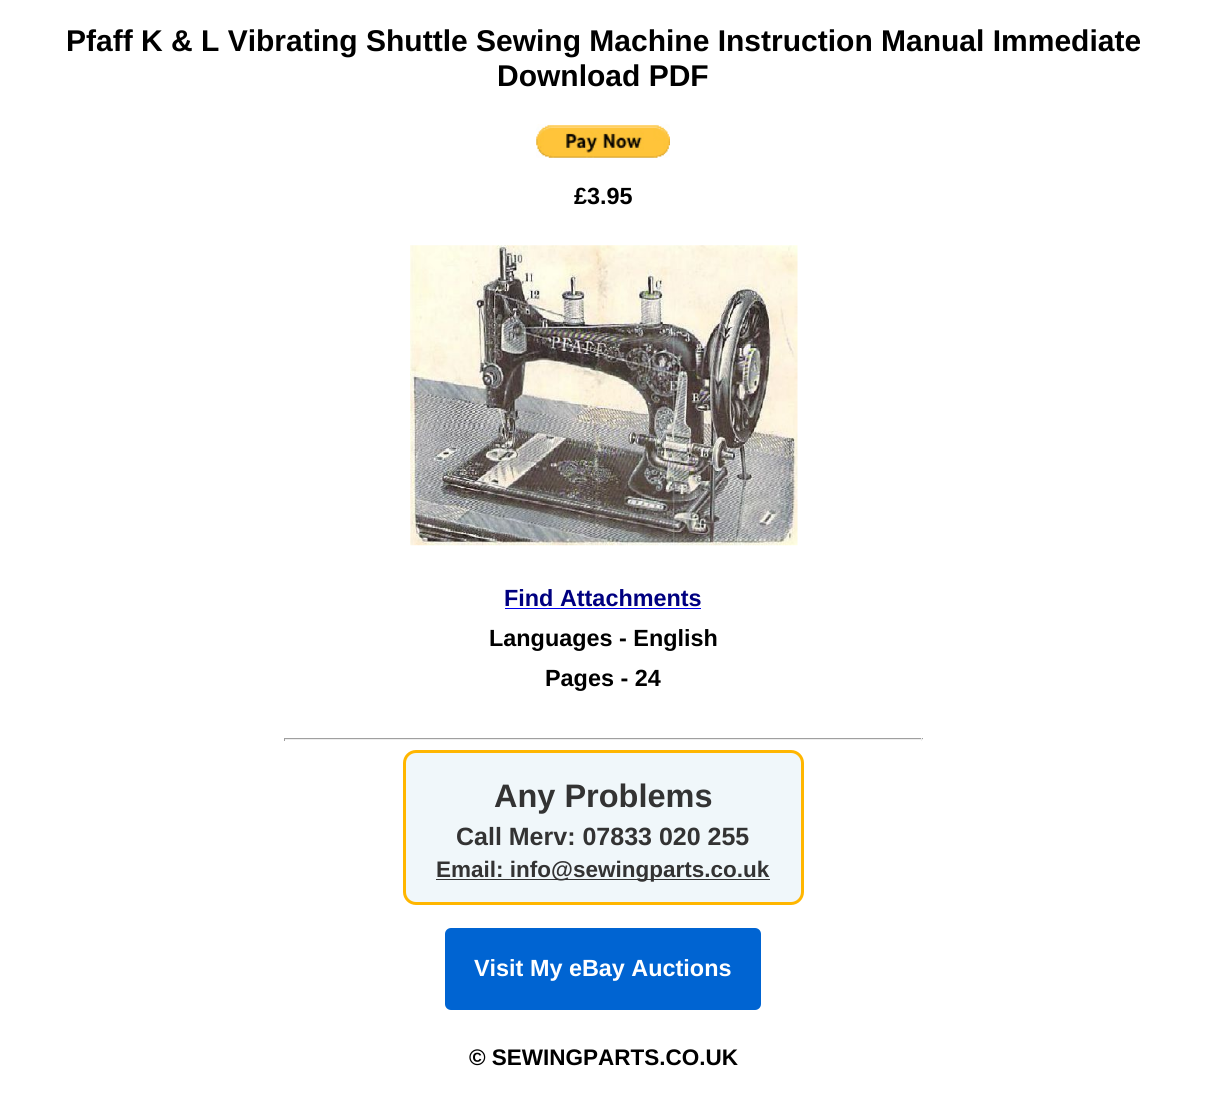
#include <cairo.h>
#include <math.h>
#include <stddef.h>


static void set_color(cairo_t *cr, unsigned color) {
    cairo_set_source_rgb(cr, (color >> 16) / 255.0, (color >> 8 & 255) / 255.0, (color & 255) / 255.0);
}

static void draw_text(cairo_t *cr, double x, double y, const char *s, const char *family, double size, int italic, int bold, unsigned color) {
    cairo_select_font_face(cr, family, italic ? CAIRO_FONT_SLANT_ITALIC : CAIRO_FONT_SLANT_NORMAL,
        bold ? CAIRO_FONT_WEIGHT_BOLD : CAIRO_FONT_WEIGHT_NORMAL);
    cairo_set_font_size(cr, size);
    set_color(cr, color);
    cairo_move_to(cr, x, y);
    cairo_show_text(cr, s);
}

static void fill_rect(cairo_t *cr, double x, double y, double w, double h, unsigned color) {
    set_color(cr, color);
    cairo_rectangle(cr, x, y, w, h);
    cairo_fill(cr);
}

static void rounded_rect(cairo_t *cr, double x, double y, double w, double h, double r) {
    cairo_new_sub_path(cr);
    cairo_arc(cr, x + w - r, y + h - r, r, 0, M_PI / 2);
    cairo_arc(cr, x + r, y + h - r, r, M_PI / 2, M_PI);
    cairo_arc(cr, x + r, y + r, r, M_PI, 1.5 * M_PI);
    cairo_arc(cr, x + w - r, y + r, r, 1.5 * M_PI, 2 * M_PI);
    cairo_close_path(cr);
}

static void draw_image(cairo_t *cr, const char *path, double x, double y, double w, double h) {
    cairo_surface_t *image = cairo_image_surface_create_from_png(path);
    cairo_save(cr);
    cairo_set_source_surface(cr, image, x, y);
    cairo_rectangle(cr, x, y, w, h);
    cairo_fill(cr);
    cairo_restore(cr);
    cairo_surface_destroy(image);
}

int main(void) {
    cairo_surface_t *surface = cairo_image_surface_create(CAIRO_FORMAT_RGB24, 1206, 1108);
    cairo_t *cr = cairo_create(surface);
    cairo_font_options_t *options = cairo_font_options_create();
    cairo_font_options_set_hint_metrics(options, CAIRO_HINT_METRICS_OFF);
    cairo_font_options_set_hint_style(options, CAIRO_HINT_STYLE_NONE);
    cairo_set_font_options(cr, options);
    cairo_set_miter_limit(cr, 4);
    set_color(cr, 0xFFFFFF);
    cairo_paint(cr);
    draw_text(cr, 66, 51, "Pfaff K & L Vibrating Shuttle Sewing Machine Instruction Manual Immediate", "Liberation Sans", 30, 0, 1, 0x000000);
    draw_text(cr, 497, 86, "Download PDF", "Liberation Sans", 30, 0, 1, 0x000000);
    draw_image(cr, "assets/img1.png", 536, 124, 134, 34);
    draw_text(cr, 574, 204, "£3.95", "Liberation Sans", 23.4, 0, 1, 0x000000);
    draw_image(cr, "assets/img2.png", 410, 245, 388, 301);
    draw_text(cr, 504, 606, "Find Attachments", "Liberation Sans", 23.4, 0, 1, 0x000080);
    fill_rect(cr, 505, 608, 196, 1, 0x0000EE);
    draw_text(cr, 489, 646, "Languages - English", "Liberation Sans", 23.4, 0, 1, 0x000000);
    draw_text(cr, 545, 686, "Pages - 24", "Liberation Sans", 23.4, 0, 1, 0x000000);
    fill_rect(cr, 284, 738, 639, 1, 0x9F9F9F);
    fill_rect(cr, 921, 738, 1, 3, 0xEEEEEE);
    fill_rect(cr, 284, 739, 639, 1, 0xEEEEEE);
    fill_rect(cr, 284, 738, 1, 3, 0x9F9F9F);
    set_color(cr, 0xF0F7FA);
    rounded_rect(cr, 404.5, 751.5, 398, 152, 11.5);
    cairo_fill_preserve(cr);
    set_color(cr, 0xFFB600);
    cairo_set_line_width(cr, 3);
    cairo_stroke(cr);
    draw_text(cr, 494, 807, "Any Problems", "Liberation Sans", 32.5, 0, 1, 0x333333);
    draw_text(cr, 456, 845, "Call Merv: 07833 020 255", "Liberation Sans", 25, 0, 1, 0x333333);
    fill_rect(cr, 436, 879, 334, 1, 0x333333);
    draw_text(cr, 436, 877, "Email: info@sewingparts.co.uk", "Liberation Sans", 22.5, 0, 1, 0x333333);
    set_color(cr, 0x0064D2);
    rounded_rect(cr, 445, 928, 316, 82, 6);
    cairo_fill(cr);
    draw_text(cr, 474, 976, "Visit My eBay Auctions", "Liberation Sans", 23.4, 0, 1, 0xFFFFFF);
    draw_text(cr, 469, 1065, "© SEWINGPARTS.CO.UK", "Liberation Sans", 22.5, 0, 1, 0x000000);
    cairo_surface_write_to_png(surface, "output.png");
    cairo_font_options_destroy(options);
    cairo_destroy(cr);
    cairo_surface_destroy(surface);
    return 0;
}
